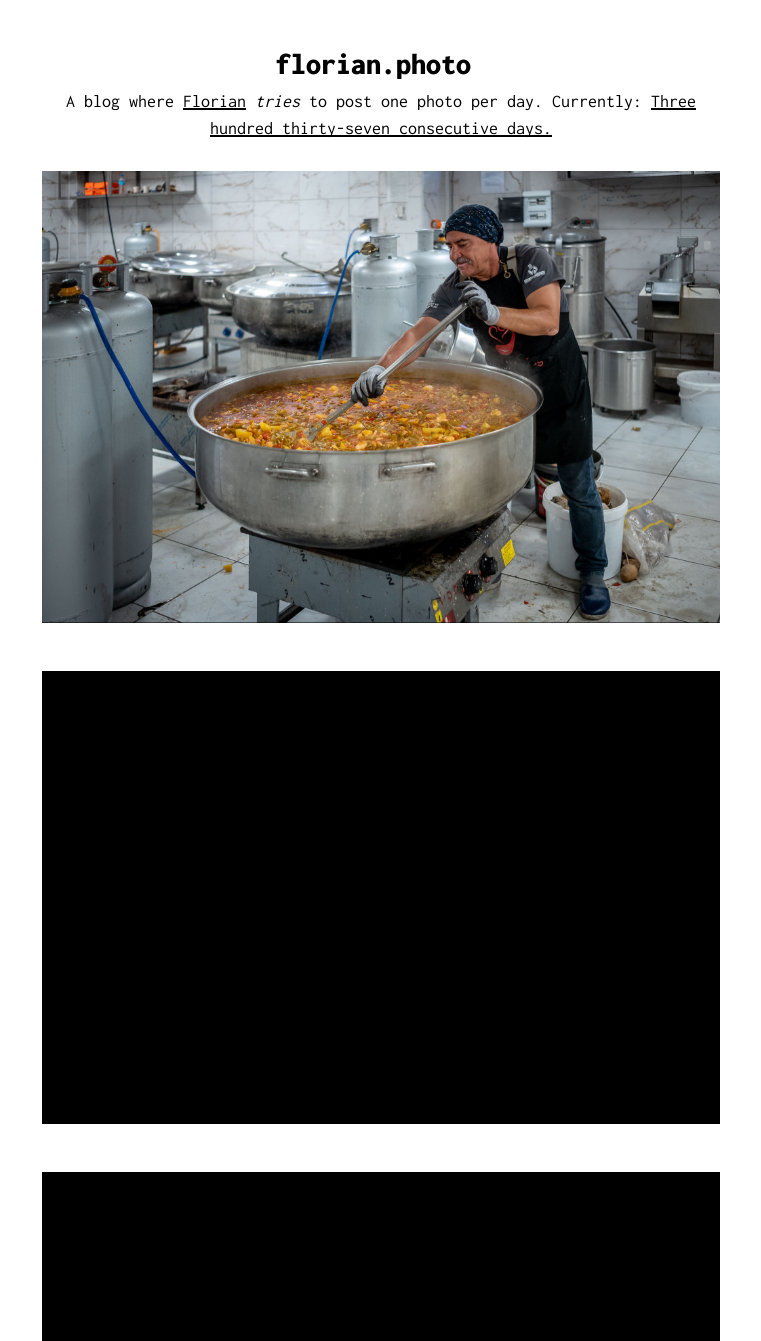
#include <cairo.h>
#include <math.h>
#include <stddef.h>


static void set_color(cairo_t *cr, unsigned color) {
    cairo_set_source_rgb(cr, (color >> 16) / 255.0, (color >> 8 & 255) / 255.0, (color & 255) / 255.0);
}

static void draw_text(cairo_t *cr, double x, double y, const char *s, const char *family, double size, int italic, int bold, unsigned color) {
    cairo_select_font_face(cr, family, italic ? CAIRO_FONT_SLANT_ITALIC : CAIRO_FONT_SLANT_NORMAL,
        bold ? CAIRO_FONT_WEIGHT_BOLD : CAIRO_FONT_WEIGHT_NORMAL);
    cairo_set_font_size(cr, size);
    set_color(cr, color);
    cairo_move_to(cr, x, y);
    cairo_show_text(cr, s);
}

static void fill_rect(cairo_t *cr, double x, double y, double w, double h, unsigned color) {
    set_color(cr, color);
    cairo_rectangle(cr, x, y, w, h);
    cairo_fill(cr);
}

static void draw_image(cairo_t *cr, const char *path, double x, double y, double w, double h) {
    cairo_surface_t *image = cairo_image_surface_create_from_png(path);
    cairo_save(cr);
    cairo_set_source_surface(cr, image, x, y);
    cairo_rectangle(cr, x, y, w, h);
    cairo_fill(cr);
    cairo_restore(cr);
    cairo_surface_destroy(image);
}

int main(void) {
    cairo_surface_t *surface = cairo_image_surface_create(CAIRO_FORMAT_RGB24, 761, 1341);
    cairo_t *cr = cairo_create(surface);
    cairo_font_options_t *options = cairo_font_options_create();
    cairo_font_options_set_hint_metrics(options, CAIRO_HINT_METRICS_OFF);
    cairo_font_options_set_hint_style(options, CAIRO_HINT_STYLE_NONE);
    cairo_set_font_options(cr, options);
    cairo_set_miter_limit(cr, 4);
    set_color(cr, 0xFFFFFF);
    cairo_paint(cr);
    draw_text(cr, 276, 74, "florian.photo", "Inconsolata Black", 30, 0, 0, 0x000000);
    draw_text(cr, 66, 107, "A blog where Florian", "Inconsolata", 18, 0, 0, 0x000000);
    draw_text(cr, 255, 107, "tries", "Inconsolata", 18, 1, 0, 0x000000);
    draw_text(cr, 309, 107, "to post one photo per day. Currently: Three", "Inconsolata", 18, 0, 0, 0x000000);
    fill_rect(cr, 183, 108, 63, 2, 0x000000);
    fill_rect(cr, 210, 135, 342, 2, 0x000000);
    draw_text(cr, 210, 134, "hundred thirty-seven consecutive days.", "Inconsolata", 18, 0, 0, 0x000000);
    fill_rect(cr, 651, 108, 45, 2, 0x000000);
    fill_rect(cr, 42, 622, 678, 1, 0x000000);
    draw_image(cr, "assets/img1.png", 42, 171, 678, 452);
    fill_rect(cr, 42, 671, 678, 453, 0x000000);
    fill_rect(cr, 42, 1172, 678, 169, 0x000000);
    cairo_surface_write_to_png(surface, "output.png");
    cairo_font_options_destroy(options);
    cairo_destroy(cr);
    cairo_surface_destroy(surface);
    return 0;
}
